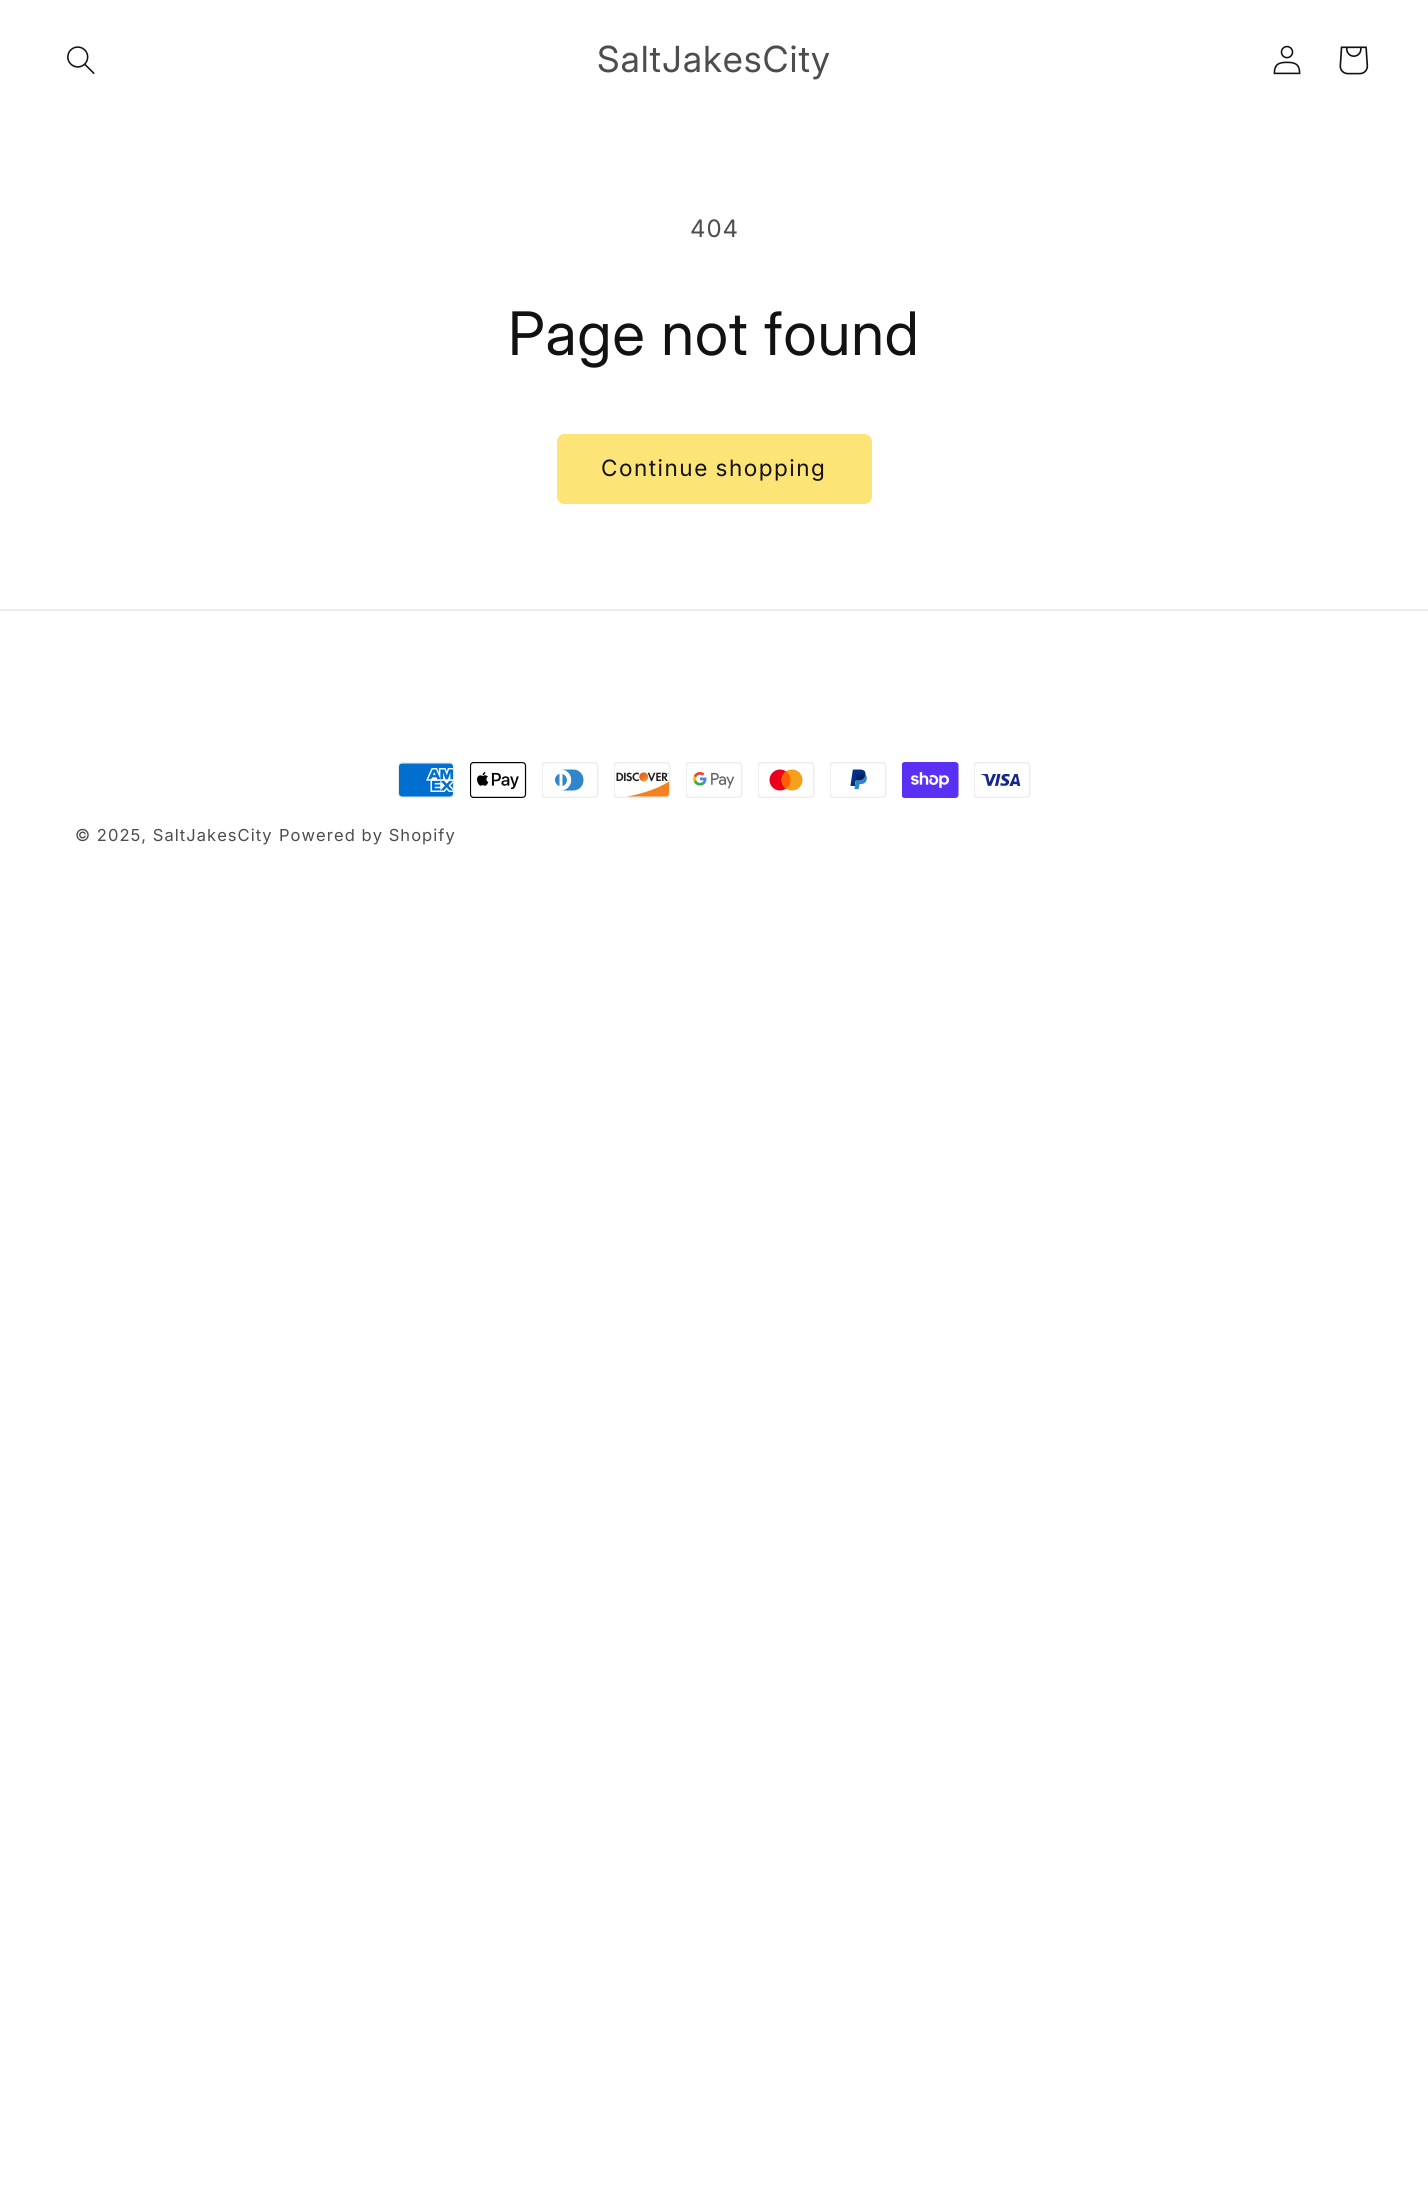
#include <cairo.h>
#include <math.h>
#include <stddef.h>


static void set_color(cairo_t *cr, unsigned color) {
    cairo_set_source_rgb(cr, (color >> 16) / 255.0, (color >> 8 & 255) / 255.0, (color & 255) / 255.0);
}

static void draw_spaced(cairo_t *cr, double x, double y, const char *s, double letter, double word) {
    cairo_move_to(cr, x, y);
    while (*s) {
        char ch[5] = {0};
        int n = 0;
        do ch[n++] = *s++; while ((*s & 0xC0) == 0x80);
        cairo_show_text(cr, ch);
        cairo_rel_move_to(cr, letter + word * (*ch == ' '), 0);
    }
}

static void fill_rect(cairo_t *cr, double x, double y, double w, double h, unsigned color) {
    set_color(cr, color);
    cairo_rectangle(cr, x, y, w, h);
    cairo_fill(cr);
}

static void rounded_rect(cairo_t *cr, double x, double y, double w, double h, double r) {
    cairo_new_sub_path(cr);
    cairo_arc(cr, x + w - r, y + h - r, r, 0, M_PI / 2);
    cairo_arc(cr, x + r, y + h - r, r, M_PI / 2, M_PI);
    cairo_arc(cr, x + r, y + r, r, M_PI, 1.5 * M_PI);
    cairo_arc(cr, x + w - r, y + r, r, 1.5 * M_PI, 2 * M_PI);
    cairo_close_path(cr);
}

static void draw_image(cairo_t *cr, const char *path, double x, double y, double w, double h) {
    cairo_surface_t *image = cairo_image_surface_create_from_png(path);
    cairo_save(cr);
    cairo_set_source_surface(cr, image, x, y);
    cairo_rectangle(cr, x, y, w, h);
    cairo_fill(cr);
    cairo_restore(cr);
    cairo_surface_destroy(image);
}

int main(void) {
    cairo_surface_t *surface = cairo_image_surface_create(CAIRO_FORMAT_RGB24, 1428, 2187);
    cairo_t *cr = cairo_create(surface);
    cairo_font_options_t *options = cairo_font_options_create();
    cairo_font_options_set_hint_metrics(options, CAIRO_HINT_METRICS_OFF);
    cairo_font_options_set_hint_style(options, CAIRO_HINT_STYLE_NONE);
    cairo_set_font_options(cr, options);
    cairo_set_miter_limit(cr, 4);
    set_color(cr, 0xFFFFFF);
    cairo_paint(cr);
    draw_image(cr, "assets/img1.png", 67, 46, 28, 28);
    cairo_select_font_face(cr, "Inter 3", CAIRO_FONT_SLANT_NORMAL, CAIRO_FONT_WEIGHT_NORMAL);
    cairo_set_font_size(cr, 36);
    set_color(cr, 0x4D4D4D);
    draw_spaced(cr, 597, 72, "SaltJakesCity", 0.9, 0);
    draw_image(cr, "assets/img2.png", 1273, 45, 28, 30);
    draw_image(cr, "assets/img3.png", 1339, 46, 30, 29);
    cairo_select_font_face(cr, "Inter", CAIRO_FONT_SLANT_NORMAL, CAIRO_FONT_WEIGHT_NORMAL);
    cairo_set_font_size(cr, 24);
    draw_spaced(cr, 690, 237, "404", 0.9, 0);
    cairo_select_font_face(cr, "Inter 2", CAIRO_FONT_SLANT_NORMAL, CAIRO_FONT_WEIGHT_NORMAL);
    cairo_set_font_size(cr, 60);
    set_color(cr, 0x121212);
    draw_spaced(cr, 508, 355, "Page not found", 0.9, 0);
    set_color(cr, 0xFCE477);
    rounded_rect(cr, 557, 434, 315, 70, 8);
    cairo_fill(cr);
    rounded_rect(cr, 558, 435, 313, 68, 7);
    cairo_stroke(cr);
    cairo_select_font_face(cr, "Inter", CAIRO_FONT_SLANT_NORMAL, CAIRO_FONT_WEIGHT_NORMAL);
    cairo_set_font_size(cr, 22.5);
    set_color(cr, 0x121212);
    draw_spaced(cr, 601, 476, "Continue shopping", 1.5, -1);
    fill_rect(cr, 0, 609, 1428, 2, 0xECECEC);
    draw_image(cr, "assets/img4.png", 398, 762, 57, 36);
    draw_image(cr, "assets/img5.png", 470, 762, 57, 36);
    draw_image(cr, "assets/img6.png", 542, 762, 57, 36);
    draw_image(cr, "assets/img7.png", 614, 762, 57, 36);
    draw_image(cr, "assets/img8.png", 686, 762, 57, 36);
    draw_image(cr, "assets/img9.png", 758, 762, 57, 36);
    draw_image(cr, "assets/img10.png", 830, 762, 57, 36);
    draw_image(cr, "assets/img11.png", 902, 762, 57, 36);
    draw_image(cr, "assets/img12.png", 974, 762, 57, 36);
    cairo_set_font_size(cr, 16.5);
    set_color(cr, 0x4D4D4D);
    draw_spaced(cr, 75, 841, "© 2025, SaltJakesCity", 1.05, 0);
    draw_spaced(cr, 279, 841, "Powered by Shopify", 1.05, 0);
    cairo_surface_write_to_png(surface, "output.png");
    cairo_font_options_destroy(options);
    cairo_destroy(cr);
    cairo_surface_destroy(surface);
    return 0;
}
